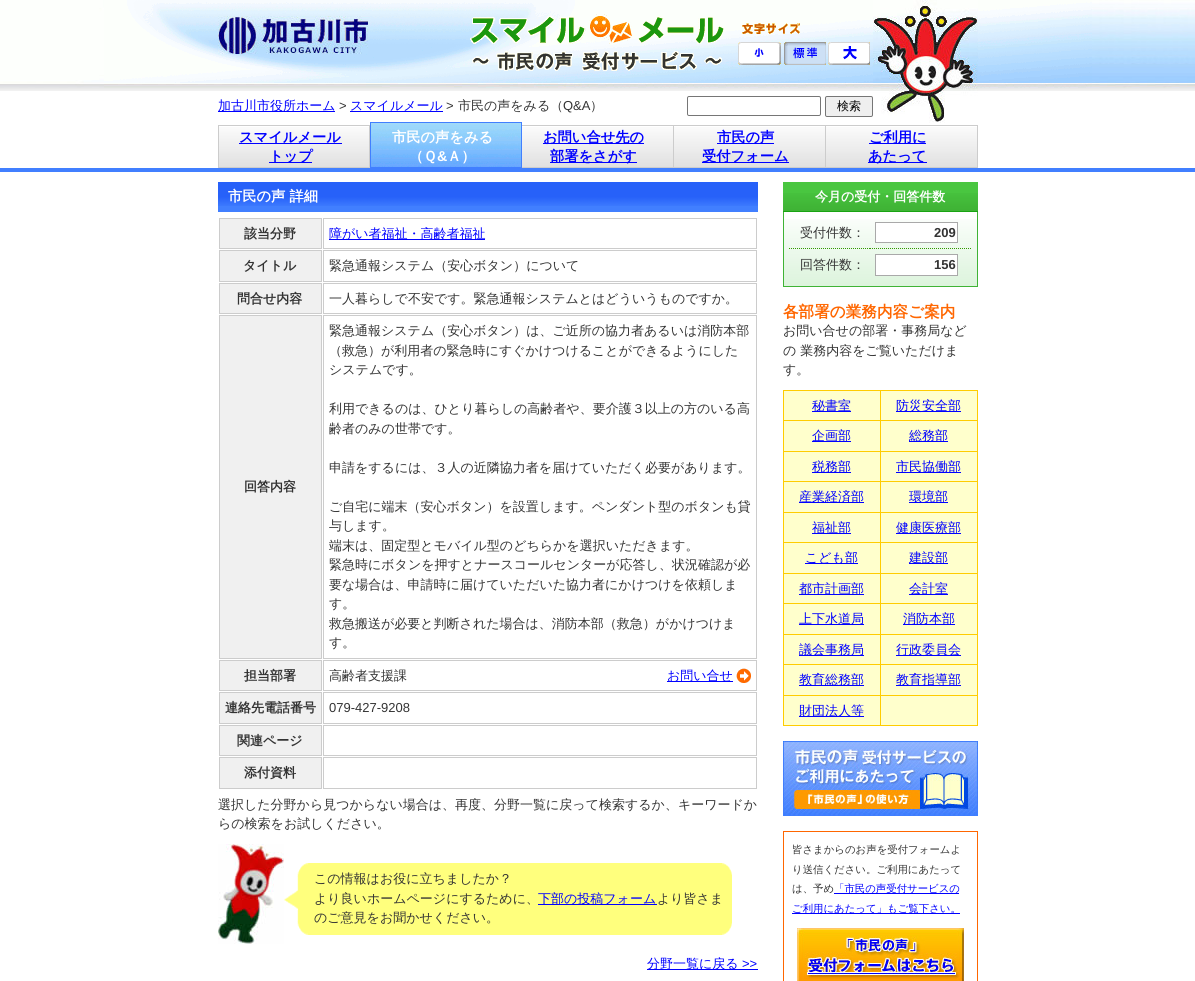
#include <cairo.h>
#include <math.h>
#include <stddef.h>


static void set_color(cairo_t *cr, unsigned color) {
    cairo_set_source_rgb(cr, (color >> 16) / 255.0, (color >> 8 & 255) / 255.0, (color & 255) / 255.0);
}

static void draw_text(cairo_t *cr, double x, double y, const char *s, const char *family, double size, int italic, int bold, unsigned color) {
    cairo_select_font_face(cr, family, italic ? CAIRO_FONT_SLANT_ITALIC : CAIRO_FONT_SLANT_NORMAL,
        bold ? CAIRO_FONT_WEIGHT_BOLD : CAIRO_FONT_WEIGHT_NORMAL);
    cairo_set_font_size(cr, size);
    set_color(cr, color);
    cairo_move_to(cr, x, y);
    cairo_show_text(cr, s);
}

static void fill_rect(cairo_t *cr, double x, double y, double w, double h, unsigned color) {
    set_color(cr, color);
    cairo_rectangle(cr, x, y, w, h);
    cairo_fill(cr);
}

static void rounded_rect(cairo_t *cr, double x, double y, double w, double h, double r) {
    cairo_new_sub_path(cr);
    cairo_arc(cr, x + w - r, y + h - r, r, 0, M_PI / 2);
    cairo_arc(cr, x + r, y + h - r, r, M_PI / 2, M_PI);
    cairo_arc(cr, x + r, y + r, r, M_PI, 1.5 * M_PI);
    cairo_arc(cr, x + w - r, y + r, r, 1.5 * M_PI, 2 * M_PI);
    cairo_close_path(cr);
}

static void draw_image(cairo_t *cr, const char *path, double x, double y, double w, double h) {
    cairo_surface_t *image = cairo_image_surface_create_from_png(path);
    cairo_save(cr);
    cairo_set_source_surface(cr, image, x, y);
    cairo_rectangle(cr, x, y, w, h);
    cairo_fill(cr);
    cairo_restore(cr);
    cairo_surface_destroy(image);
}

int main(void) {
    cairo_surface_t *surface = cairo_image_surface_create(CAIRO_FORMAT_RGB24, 1195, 981);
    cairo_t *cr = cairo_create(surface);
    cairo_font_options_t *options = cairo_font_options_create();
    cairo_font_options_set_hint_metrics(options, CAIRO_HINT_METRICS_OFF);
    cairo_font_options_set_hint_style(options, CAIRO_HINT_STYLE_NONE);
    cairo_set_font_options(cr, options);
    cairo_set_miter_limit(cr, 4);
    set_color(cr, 0xFFFFFF);
    cairo_paint(cr);
    draw_image(cr, "assets/img1.png", 0, 0, 1195, 91);
    draw_image(cr, "assets/img2.png", 104, 0, 988, 88);
    fill_rect(cr, 0, 168, 1195, 4, 0x417FFF);
    draw_image(cr, "assets/img3.png", 873, 0, 105, 123);
    draw_image(cr, "assets/img4.png", 218, 16, 150, 38);
    draw_image(cr, "assets/img5.png", 742, 23, 58, 11);
    draw_image(cr, "assets/img6.png", 738, 42, 43, 23);
    draw_image(cr, "assets/img7.png", 784, 42, 42, 23);
    draw_image(cr, "assets/img8.png", 828, 42, 42, 23);
    fill_rect(cr, 218, 111, 117, 1, 0x0000FF);
    draw_text(cr, 218, 110, "加古川市役所ホーム", "WenQuanYi Zen Hei Medium", 13, 0, 0, 0x0000FF);
    draw_text(cr, 339, 110, ">", "Liberation Sans", 13, 0, 0, 0x333333);
    fill_rect(cr, 350, 111, 93, 1, 0x0000FF);
    draw_text(cr, 350, 110, "スマイルメール", "WenQuanYi Zen Hei Medium", 13, 0, 0, 0x0000FF);
    draw_text(cr, 446, 110, ">", "Liberation Sans", 13, 0, 0, 0x333333);
    draw_text(cr, 458, 110, "市民の声をみる（", "WenQuanYi Zen Hei Medium", 13, 0, 0, 0x333333);
    draw_text(cr, 563, 110, "Q&A", "Liberation Sans", 13, 0, 0, 0x333333);
    draw_text(cr, 590, 110, "）", "WenQuanYi Zen Hei Medium", 13, 0, 0, 0x333333);
    rounded_rect(cr, 687.5, 96.5, 133, 19, 1.5);
    set_color(cr, 0x767676);
    cairo_set_line_width(cr, 1);
    cairo_stroke(cr);
    set_color(cr, 0xEFEFEF);
    rounded_rect(cr, 825.5, 96.5, 47, 20, 1.5);
    cairo_fill_preserve(cr);
    set_color(cr, 0x767676);
    cairo_stroke(cr);
    draw_text(cr, 837, 110, "検索", "WenQuanYi Zen Hei Medium", 12, 0, 0, 0x000000);
    draw_image(cr, "assets/img9.png", 219, 127, 150, 40);
    cairo_rectangle(cr, 218.5, 125.5, 151, 42);
    set_color(cr, 0xCCCCCC);
    cairo_stroke(cr);
    fill_rect(cr, 239, 143, 103, 1, 0x0000FF);
    draw_text(cr, 239, 142, "スマイルメール", "WenQuanYi Zen Hei", 14.25, 0, 1, 0x0000FF);
    fill_rect(cr, 269, 162, 43, 1, 0x0000FF);
    draw_text(cr, 269, 161, "トップ", "WenQuanYi Zen Hei", 14.25, 0, 1, 0x0000FF);
    draw_image(cr, "assets/img10.png", 371, 123, 150, 44);
    cairo_rectangle(cr, 370.5, 122.5, 151, 45);
    set_color(cr, 0x417FFF);
    cairo_stroke(cr);
    draw_text(cr, 392, 142, "市民の声をみる", "WenQuanYi Zen Hei", 14.25, 0, 1, 0xFFFFFF);
    draw_text(cr, 409, 161, "（Ｑ", "WenQuanYi Zen Hei", 14.25, 0, 1, 0xFFFFFF);
    draw_text(cr, 437, 161, "&", "Liberation Sans", 14.25, 0, 1, 0xFFFFFF);
    draw_text(cr, 447, 161, "Ａ）", "WenQuanYi Zen Hei", 14.25, 0, 1, 0xFFFFFF);
    draw_image(cr, "assets/img11.png", 522, 127, 151, 40);
    fill_rect(cr, 522, 125, 456, 1, 0xCCCCCC);
    fill_rect(cr, 673, 125, 1, 43, 0xCCCCCC);
    fill_rect(cr, 522, 167, 152, 1, 0xCCCCCC);
    fill_rect(cr, 543, 143, 101, 1, 0x0000FF);
    draw_text(cr, 543, 142, "お問い合せ先の", "WenQuanYi Zen Hei", 14.25, 0, 1, 0x0000FF);
    fill_rect(cr, 550, 162, 87, 1, 0x0000FF);
    draw_text(cr, 550, 161, "部署をさがす", "WenQuanYi Zen Hei", 14.25, 0, 1, 0x0000FF);
    draw_image(cr, "assets/img11.png", 674, 127, 151, 40);
    fill_rect(cr, 825, 125, 1, 43, 0xCCCCCC);
    fill_rect(cr, 674, 167, 152, 1, 0xCCCCCC);
    fill_rect(cr, 717, 143, 57, 1, 0x0000FF);
    draw_text(cr, 717, 142, "市民の声", "WenQuanYi Zen Hei", 14.25, 0, 1, 0x0000FF);
    fill_rect(cr, 702, 162, 87, 1, 0x0000FF);
    draw_text(cr, 702, 161, "受付フォーム", "WenQuanYi Zen Hei", 14.25, 0, 1, 0x0000FF);
    draw_image(cr, "assets/img11.png", 826, 127, 151, 40);
    fill_rect(cr, 977, 125, 1, 43, 0xCCCCCC);
    fill_rect(cr, 826, 167, 152, 1, 0xCCCCCC);
    fill_rect(cr, 869, 143, 57, 1, 0x0000FF);
    draw_text(cr, 869, 142, "ご利用に", "WenQuanYi Zen Hei", 14.25, 0, 1, 0x0000FF);
    fill_rect(cr, 868, 162, 59, 1, 0x0000FF);
    draw_text(cr, 868, 161, "あたって", "WenQuanYi Zen Hei", 14.25, 0, 1, 0x0000FF);
    fill_rect(cr, 218, 206, 540, 6, 0x417FFF);
    draw_image(cr, "assets/img12.png", 218, 182, 540, 24);
    draw_text(cr, 228, 201, "市民の声 詳細", "WenQuanYi Zen Hei", 14.25, 0, 1, 0xFFFFFF);
    set_color(cr, 0xF0F0F0);
    cairo_rectangle(cr, 219.5, 218.5, 102, 30);
    cairo_fill_preserve(cr);
    set_color(cr, 0xCCCCCC);
    cairo_stroke(cr);
    draw_text(cr, 244, 238, "該当分野", "WenQuanYi Zen Hei", 13, 0, 1, 0x333333);
    cairo_rectangle(cr, 323.5, 218.5, 433, 30);
    set_color(cr, 0xCCCCCC);
    cairo_stroke(cr);
    fill_rect(cr, 329, 239, 156, 1, 0x0000FF);
    draw_text(cr, 329, 238, "障がい者福祉・高齢者福祉", "WenQuanYi Zen Hei Medium", 13, 0, 0, 0x0000FF);
    set_color(cr, 0xF0F0F0);
    cairo_rectangle(cr, 219.5, 250.5, 102, 31);
    cairo_fill_preserve(cr);
    set_color(cr, 0xCCCCCC);
    cairo_stroke(cr);
    draw_text(cr, 243, 270, "タイトル", "WenQuanYi Zen Hei", 13, 0, 1, 0x333333);
    cairo_rectangle(cr, 323.5, 250.5, 433, 31);
    set_color(cr, 0xCCCCCC);
    cairo_stroke(cr);
    draw_text(cr, 329, 270, "緊急通報システム（安心ボタン）について", "WenQuanYi Zen Hei Medium", 13, 0, 0, 0x333333);
    set_color(cr, 0xF0F0F0);
    cairo_rectangle(cr, 219.5, 283.5, 102, 30);
    cairo_fill_preserve(cr);
    set_color(cr, 0xCCCCCC);
    cairo_stroke(cr);
    draw_text(cr, 237, 303, "問合せ内容", "WenQuanYi Zen Hei", 13, 0, 1, 0x333333);
    cairo_rectangle(cr, 323.5, 283.5, 433, 30);
    set_color(cr, 0xCCCCCC);
    cairo_stroke(cr);
    draw_text(cr, 329, 303, "一人暮らしで不安です。緊急通報システムとはどういうものですか。", "WenQuanYi Zen Hei Medium", 13, 0, 0, 0x333333);
    set_color(cr, 0xF0F0F0);
    cairo_rectangle(cr, 219.5, 315.5, 102, 343);
    cairo_fill_preserve(cr);
    set_color(cr, 0xCCCCCC);
    cairo_stroke(cr);
    draw_text(cr, 244, 491, "回答内容", "WenQuanYi Zen Hei", 13, 0, 1, 0x333333);
    cairo_rectangle(cr, 323.5, 315.5, 433, 343);
    set_color(cr, 0xCCCCCC);
    cairo_stroke(cr);
    draw_text(cr, 329, 335, "緊急通報システム（安心ボタン）は、ご近所の協力者あるいは消防本部", "WenQuanYi Zen Hei Medium", 13, 0, 0, 0x333333);
    draw_text(cr, 329, 355, "（救急）が利用者の緊急時にすぐかけつけることができるようにした", "WenQuanYi Zen Hei Medium", 13, 0, 0, 0x333333);
    draw_text(cr, 329, 374, "システムです。", "WenQuanYi Zen Hei Medium", 13, 0, 0, 0x333333);
    draw_text(cr, 329, 413, "利用できるのは、ひとり暮らしの高齢者や、要介護３以上の方のいる高", "WenQuanYi Zen Hei Medium", 13, 0, 0, 0x333333);
    draw_text(cr, 329, 433, "齢者のみの世帯です。", "WenQuanYi Zen Hei Medium", 13, 0, 0, 0x333333);
    draw_text(cr, 329, 472, "申請をするには、３人の近隣協力者を届けていただく必要があります。", "WenQuanYi Zen Hei Medium", 13, 0, 0, 0x333333);
    draw_text(cr, 329, 511, "ご自宅に端末（安心ボタン）を設置します。ペンダント型のボタンも貸", "WenQuanYi Zen Hei Medium", 13, 0, 0, 0x333333);
    draw_text(cr, 329, 530, "与します。", "WenQuanYi Zen Hei Medium", 13, 0, 0, 0x333333);
    draw_text(cr, 329, 550, "端末は、固定型とモバイル型のどちらかを選択いただきます。", "WenQuanYi Zen Hei Medium", 13, 0, 0, 0x333333);
    draw_text(cr, 329, 569, "緊急時にボタンを押すとナースコールセンターが応答し、状況確認が必", "WenQuanYi Zen Hei Medium", 13, 0, 0, 0x333333);
    draw_text(cr, 329, 589, "要な場合は、申請時に届けていただいた協力者にかけつけを依頼しま", "WenQuanYi Zen Hei Medium", 13, 0, 0, 0x333333);
    draw_text(cr, 329, 608, "す。", "WenQuanYi Zen Hei Medium", 13, 0, 0, 0x333333);
    draw_text(cr, 329, 628, "救急搬送が必要と判断された場合は、消防本部（救急）がかけつけま", "WenQuanYi Zen Hei Medium", 13, 0, 0, 0x333333);
    draw_text(cr, 329, 647, "す。", "WenQuanYi Zen Hei Medium", 13, 0, 0, 0x333333);
    set_color(cr, 0xF0F0F0);
    cairo_rectangle(cr, 219.5, 660.5, 102, 30);
    cairo_fill_preserve(cr);
    set_color(cr, 0xCCCCCC);
    cairo_stroke(cr);
    draw_text(cr, 244, 680, "担当部署", "WenQuanYi Zen Hei", 13, 0, 1, 0x333333);
    cairo_rectangle(cr, 323.5, 660.5, 433, 30);
    set_color(cr, 0xCCCCCC);
    cairo_stroke(cr);
    draw_text(cr, 329, 680, "高齢者支援課", "WenQuanYi Zen Hei Medium", 13, 0, 0, 0x333333);
    fill_rect(cr, 667, 681, 66, 1, 0x0000FF);
    draw_text(cr, 667, 680, "お問い合せ", "WenQuanYi Zen Hei Medium", 13, 0, 0, 0x0000FF);
    draw_image(cr, "assets/img13.png", 736, 668, 15, 15);
    set_color(cr, 0xF0F0F0);
    cairo_rectangle(cr, 219.5, 692.5, 102, 31);
    cairo_fill_preserve(cr);
    set_color(cr, 0xCCCCCC);
    cairo_stroke(cr);
    draw_text(cr, 225, 712, "連絡先電話番号", "WenQuanYi Zen Hei", 13, 0, 1, 0x333333);
    cairo_rectangle(cr, 323.5, 692.5, 433, 31);
    set_color(cr, 0xCCCCCC);
    cairo_stroke(cr);
    draw_text(cr, 329, 712, "079-427-9208", "Liberation Sans", 13, 0, 0, 0x333333);
    set_color(cr, 0xF0F0F0);
    cairo_rectangle(cr, 219.5, 725.5, 102, 30);
    cairo_fill_preserve(cr);
    set_color(cr, 0xCCCCCC);
    cairo_stroke(cr);
    draw_text(cr, 237, 745, "関連ページ", "WenQuanYi Zen Hei", 13, 0, 1, 0x333333);
    cairo_rectangle(cr, 323.5, 725.5, 433, 30);
    set_color(cr, 0xCCCCCC);
    cairo_stroke(cr);
    set_color(cr, 0xF0F0F0);
    cairo_rectangle(cr, 219.5, 757.5, 102, 31);
    cairo_fill_preserve(cr);
    set_color(cr, 0xCCCCCC);
    cairo_stroke(cr);
    draw_text(cr, 244, 777, "添付資料", "WenQuanYi Zen Hei", 13, 0, 1, 0x333333);
    cairo_rectangle(cr, 323.5, 757.5, 433, 31);
    set_color(cr, 0xCCCCCC);
    cairo_stroke(cr);
    draw_text(cr, 218, 809, "選択した分野から見つからない場合は、再度、分野一覧に戻って検索するか、キーワードか", "WenQuanYi Zen Hei Medium", 13, 0, 0, 0x333333);
    draw_text(cr, 218, 828, "らの検索をお試しください。", "WenQuanYi Zen Hei Medium", 13, 0, 0, 0x333333);
    draw_image(cr, "assets/img14.png", 218, 844, 66, 100);
    draw_image(cr, "assets/img15.png", 284, 863, 448, 72);
    draw_text(cr, 314, 883, "この情報はお役に立ちましたか？", "WenQuanYi Zen Hei Medium", 13, 0, 0, 0x333333);
    draw_text(cr, 314, 903, "より良いホームページにするために、", "WenQuanYi Zen Hei Medium", 13, 0, 0, 0x333333);
    fill_rect(cr, 538, 904, 119, 1, 0x0000FF);
    draw_text(cr, 538, 903, "下部の投稿フォーム", "WenQuanYi Zen Hei Medium", 13, 0, 0, 0x0000FF);
    draw_text(cr, 657, 903, "より皆さま", "WenQuanYi Zen Hei Medium", 13, 0, 0, 0x333333);
    draw_text(cr, 314, 922, "のご意見をお聞かせください。", "WenQuanYi Zen Hei Medium", 13, 0, 0, 0x333333);
    fill_rect(cr, 647, 969, 111, 1, 0x0000FF);
    draw_text(cr, 647, 968, "分野一覧に戻る", "WenQuanYi Zen Hei Medium", 13, 0, 0, 0x0000FF);
    draw_text(cr, 742, 968, ">>", "Liberation Sans", 13, 0, 0, 0x0000FF);
    fill_rect(cr, 783, 182, 195, 11, 0x49C640);
    draw_image(cr, "assets/img16.png", 783, 193, 195, 19);
    draw_text(cr, 815, 201, "今月の受付・回答件数", "WenQuanYi Zen Hei", 13, 0, 1, 0xFFFFFF);
    draw_image(cr, "assets/img17.png", 784, 219, 193, 67);
    fill_rect(cr, 977, 212, 1, 75, 0x3FB335);
    fill_rect(cr, 783, 286, 195, 1, 0x3FB335);
    fill_rect(cr, 783, 212, 1, 75, 0x3FB335);
    cairo_new_path(cr);
    cairo_move_to(cr, 789, 248.5);
    cairo_line_to(cr, 870, 248.5);
    set_color(cr, 0x339900);
    cairo_set_dash(cr, (double[]){1, 1}, 2, 0);
    cairo_stroke(cr);
    draw_text(cr, 800, 237, "受付件数：", "WenQuanYi Zen Hei Medium", 13, 0, 0, 0x333333);
    cairo_new_path(cr);
    cairo_move_to(cr, 870, 248.5);
    cairo_line_to(cr, 972, 248.5);
    set_color(cr, 0x339900);
    cairo_stroke(cr);
    set_color(cr, 0xFFFFFF);
    cairo_rectangle(cr, 875.5, 222.5, 82, 20);
    cairo_fill_preserve(cr);
    set_color(cr, 0xA9A9A9);
    cairo_set_dash(cr, NULL, 0, 0);
    cairo_stroke(cr);
    draw_text(cr, 934, 237, "209", "Liberation Sans", 13, 0, 1, 0x333333);
    draw_text(cr, 800, 269, "回答件数：", "WenQuanYi Zen Hei Medium", 13, 0, 0, 0x333333);
    set_color(cr, 0xFFFFFF);
    cairo_rectangle(cr, 875.5, 254.5, 82, 21);
    cairo_fill_preserve(cr);
    set_color(cr, 0xA9A9A9);
    cairo_stroke(cr);
    draw_text(cr, 934, 269, "156", "Liberation Sans", 13, 0, 1, 0x333333);
    draw_text(cr, 783, 317, "各部署の業務内容ご案内", "WenQuanYi Zen Hei", 15.6, 0, 1, 0xFF6600);
    draw_text(cr, 783, 335, "お問い合せの部署・事務局など", "WenQuanYi Zen Hei Medium", 13, 0, 0, 0x333333);
    draw_text(cr, 783, 355, "の 業務内容をご覧いただけま", "WenQuanYi Zen Hei Medium", 13, 0, 0, 0x333333);
    draw_text(cr, 783, 374, "す。", "WenQuanYi Zen Hei Medium", 13, 0, 0, 0x333333);
    fill_rect(cr, 784, 391, 193, 334, 0xFFFFCC);
    fill_rect(cr, 783, 390, 195, 1, 0xFFCC00);
    fill_rect(cr, 977, 390, 1, 336, 0xFFCC00);
    fill_rect(cr, 783, 420, 194, 1, 0xFFCC00);
    fill_rect(cr, 783, 391, 1, 30, 0xFFCC00);
    fill_rect(cr, 812, 411, 39, 1, 0x0000FF);
    draw_text(cr, 812, 410, "秘書室", "WenQuanYi Zen Hei Medium", 13, 0, 0, 0x0000FF);
    fill_rect(cr, 880, 391, 1, 30, 0xFFCC00);
    fill_rect(cr, 896, 411, 65, 1, 0x0000FF);
    draw_text(cr, 896, 410, "防災安全部", "WenQuanYi Zen Hei Medium", 13, 0, 0, 0x0000FF);
    fill_rect(cr, 783, 451, 194, 1, 0xFFCC00);
    fill_rect(cr, 783, 421, 1, 31, 0xFFCC00);
    fill_rect(cr, 812, 441, 39, 1, 0x0000FF);
    draw_text(cr, 812, 440, "企画部", "WenQuanYi Zen Hei Medium", 13, 0, 0, 0x0000FF);
    fill_rect(cr, 880, 421, 1, 31, 0xFFCC00);
    fill_rect(cr, 909, 441, 39, 1, 0x0000FF);
    draw_text(cr, 909, 440, "総務部", "WenQuanYi Zen Hei Medium", 13, 0, 0, 0x0000FF);
    fill_rect(cr, 783, 481, 194, 1, 0xFFCC00);
    fill_rect(cr, 783, 452, 1, 30, 0xFFCC00);
    fill_rect(cr, 812, 472, 39, 1, 0x0000FF);
    draw_text(cr, 812, 471, "税務部", "WenQuanYi Zen Hei Medium", 13, 0, 0, 0x0000FF);
    fill_rect(cr, 880, 452, 1, 30, 0xFFCC00);
    fill_rect(cr, 896, 472, 65, 1, 0x0000FF);
    draw_text(cr, 896, 471, "市民協働部", "WenQuanYi Zen Hei Medium", 13, 0, 0, 0x0000FF);
    fill_rect(cr, 783, 512, 194, 1, 0xFFCC00);
    fill_rect(cr, 783, 482, 1, 31, 0xFFCC00);
    fill_rect(cr, 799, 502, 65, 1, 0x0000FF);
    draw_text(cr, 799, 501, "産業経済部", "WenQuanYi Zen Hei Medium", 13, 0, 0, 0x0000FF);
    fill_rect(cr, 880, 482, 1, 31, 0xFFCC00);
    fill_rect(cr, 909, 502, 39, 1, 0x0000FF);
    draw_text(cr, 909, 501, "環境部", "WenQuanYi Zen Hei Medium", 13, 0, 0, 0x0000FF);
    fill_rect(cr, 783, 542, 194, 1, 0xFFCC00);
    fill_rect(cr, 783, 513, 1, 30, 0xFFCC00);
    fill_rect(cr, 812, 533, 39, 1, 0x0000FF);
    draw_text(cr, 812, 532, "福祉部", "WenQuanYi Zen Hei Medium", 13, 0, 0, 0x0000FF);
    fill_rect(cr, 880, 513, 1, 30, 0xFFCC00);
    fill_rect(cr, 896, 533, 65, 1, 0x0000FF);
    draw_text(cr, 896, 532, "健康医療部", "WenQuanYi Zen Hei Medium", 13, 0, 0, 0x0000FF);
    fill_rect(cr, 783, 573, 194, 1, 0xFFCC00);
    fill_rect(cr, 783, 543, 1, 31, 0xFFCC00);
    fill_rect(cr, 805, 563, 53, 1, 0x0000FF);
    draw_text(cr, 805, 562, "こども部", "WenQuanYi Zen Hei Medium", 13, 0, 0, 0x0000FF);
    fill_rect(cr, 880, 543, 1, 31, 0xFFCC00);
    fill_rect(cr, 909, 563, 39, 1, 0x0000FF);
    draw_text(cr, 909, 562, "建設部", "WenQuanYi Zen Hei Medium", 13, 0, 0, 0x0000FF);
    fill_rect(cr, 783, 603, 194, 1, 0xFFCC00);
    fill_rect(cr, 783, 574, 1, 30, 0xFFCC00);
    fill_rect(cr, 799, 594, 65, 1, 0x0000FF);
    draw_text(cr, 799, 593, "都市計画部", "WenQuanYi Zen Hei Medium", 13, 0, 0, 0x0000FF);
    fill_rect(cr, 880, 574, 1, 30, 0xFFCC00);
    fill_rect(cr, 909, 594, 39, 1, 0x0000FF);
    draw_text(cr, 909, 593, "会計室", "WenQuanYi Zen Hei Medium", 13, 0, 0, 0x0000FF);
    fill_rect(cr, 783, 634, 194, 1, 0xFFCC00);
    fill_rect(cr, 783, 604, 1, 31, 0xFFCC00);
    fill_rect(cr, 799, 624, 65, 1, 0x0000FF);
    draw_text(cr, 799, 623, "上下水道局", "WenQuanYi Zen Hei Medium", 13, 0, 0, 0x0000FF);
    fill_rect(cr, 880, 604, 1, 31, 0xFFCC00);
    fill_rect(cr, 903, 624, 52, 1, 0x0000FF);
    draw_text(cr, 903, 623, "消防本部", "WenQuanYi Zen Hei Medium", 13, 0, 0, 0x0000FF);
    fill_rect(cr, 783, 664, 194, 1, 0xFFCC00);
    fill_rect(cr, 783, 635, 1, 30, 0xFFCC00);
    fill_rect(cr, 799, 655, 65, 1, 0x0000FF);
    draw_text(cr, 799, 654, "議会事務局", "WenQuanYi Zen Hei Medium", 13, 0, 0, 0x0000FF);
    fill_rect(cr, 880, 635, 1, 30, 0xFFCC00);
    fill_rect(cr, 896, 655, 65, 1, 0x0000FF);
    draw_text(cr, 896, 654, "行政委員会", "WenQuanYi Zen Hei Medium", 13, 0, 0, 0x0000FF);
    fill_rect(cr, 783, 695, 194, 1, 0xFFCC00);
    fill_rect(cr, 783, 665, 1, 31, 0xFFCC00);
    fill_rect(cr, 799, 685, 65, 1, 0x0000FF);
    draw_text(cr, 799, 684, "教育総務部", "WenQuanYi Zen Hei Medium", 13, 0, 0, 0x0000FF);
    fill_rect(cr, 880, 665, 1, 31, 0xFFCC00);
    fill_rect(cr, 896, 685, 65, 1, 0x0000FF);
    draw_text(cr, 896, 684, "教育指導部", "WenQuanYi Zen Hei Medium", 13, 0, 0, 0x0000FF);
    fill_rect(cr, 783, 725, 194, 1, 0xFFCC00);
    fill_rect(cr, 783, 696, 1, 30, 0xFFCC00);
    fill_rect(cr, 799, 716, 65, 1, 0x0000FF);
    draw_text(cr, 799, 715, "財団法人等", "WenQuanYi Zen Hei Medium", 13, 0, 0, 0x0000FF);
    fill_rect(cr, 880, 696, 1, 30, 0xFFCC00);
    draw_image(cr, "assets/img18.png", 783, 741, 195, 75);
    cairo_rectangle(cr, 783.5, 831.5, 194, 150);
    set_color(cr, 0xFF6600);
    cairo_stroke(cr);
    draw_text(cr, 792, 853, "皆さまからのお声を受付フォームよ", "WenQuanYi Zen Hei Medium", 10.4, 0, 0, 0x333333);
    draw_text(cr, 792, 873, "り送信ください。ご利用にあたって", "WenQuanYi Zen Hei Medium", 10.4, 0, 0, 0x333333);
    draw_text(cr, 792, 892, "は、予め", "WenQuanYi Zen Hei Medium", 10.4, 0, 0, 0x333333);
    fill_rect(cr, 834, 893, 125, 1, 0x0000FF);
    draw_text(cr, 834, 892, "「市民の声受付サービスの", "WenQuanYi Zen Hei Medium", 10.4, 0, 0, 0x0000FF);
    fill_rect(cr, 792, 913, 168, 1, 0x0000FF);
    draw_text(cr, 792, 912, "ご利用にあたって」もご覧下さい。", "WenQuanYi Zen Hei Medium", 10.4, 0, 0, 0x0000FF);
    draw_image(cr, "assets/img19.png", 797, 928, 167, 53);
    cairo_surface_write_to_png(surface, "output.png");
    cairo_font_options_destroy(options);
    cairo_destroy(cr);
    cairo_surface_destroy(surface);
    return 0;
}
